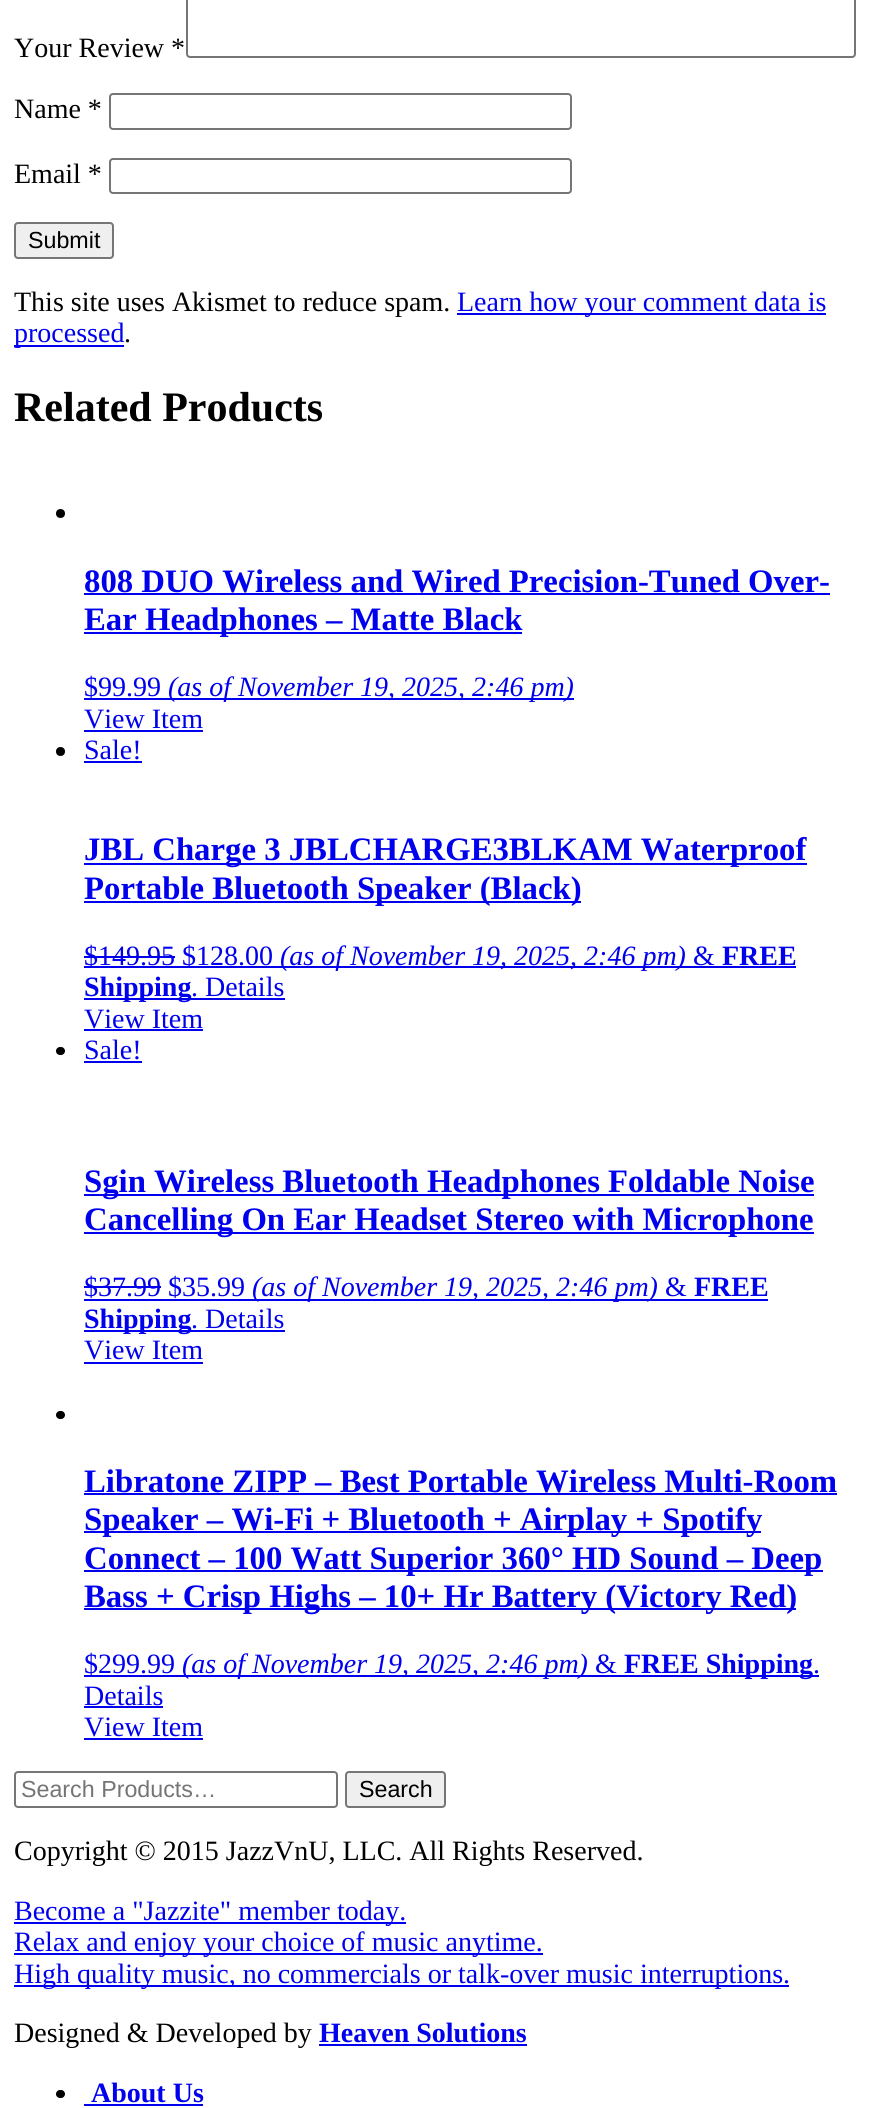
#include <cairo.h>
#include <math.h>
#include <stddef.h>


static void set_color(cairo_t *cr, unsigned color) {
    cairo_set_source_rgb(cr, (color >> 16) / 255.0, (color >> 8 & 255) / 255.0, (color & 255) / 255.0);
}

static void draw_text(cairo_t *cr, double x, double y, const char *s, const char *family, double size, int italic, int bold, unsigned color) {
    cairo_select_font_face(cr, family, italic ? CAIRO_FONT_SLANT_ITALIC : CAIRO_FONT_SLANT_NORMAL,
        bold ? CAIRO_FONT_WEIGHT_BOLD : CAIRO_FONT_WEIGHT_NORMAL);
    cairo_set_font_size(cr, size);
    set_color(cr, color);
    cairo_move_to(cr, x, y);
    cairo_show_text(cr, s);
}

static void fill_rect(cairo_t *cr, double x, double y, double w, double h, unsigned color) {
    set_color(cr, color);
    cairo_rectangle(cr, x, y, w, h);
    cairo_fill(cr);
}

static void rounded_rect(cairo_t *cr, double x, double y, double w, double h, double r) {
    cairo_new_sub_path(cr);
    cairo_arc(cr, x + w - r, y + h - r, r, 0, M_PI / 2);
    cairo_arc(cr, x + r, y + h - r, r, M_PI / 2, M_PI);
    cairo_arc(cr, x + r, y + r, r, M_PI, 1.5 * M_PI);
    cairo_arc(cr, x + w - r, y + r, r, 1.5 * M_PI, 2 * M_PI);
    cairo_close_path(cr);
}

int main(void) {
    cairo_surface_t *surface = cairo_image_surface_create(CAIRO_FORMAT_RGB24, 876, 2108);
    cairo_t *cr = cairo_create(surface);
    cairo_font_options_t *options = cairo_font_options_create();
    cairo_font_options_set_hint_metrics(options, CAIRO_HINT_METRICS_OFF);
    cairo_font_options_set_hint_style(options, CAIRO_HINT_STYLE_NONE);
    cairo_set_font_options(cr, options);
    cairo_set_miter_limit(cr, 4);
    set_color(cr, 0xFFFFFF);
    cairo_paint(cr);
    draw_text(cr, 14, 57, "Your Review *", "Liberation Serif", 28, 0, 0, 0x000000);
    rounded_rect(cr, 187, -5, 668, 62, 3);
    set_color(cr, 0x767676);
    cairo_stroke(cr);
    draw_text(cr, 14, 118, "Name *", "Liberation Serif", 28, 0, 0, 0x000000);
    rounded_rect(cr, 110, 94, 461, 35, 3);
    set_color(cr, 0x767676);
    cairo_stroke(cr);
    draw_text(cr, 14, 183, "Email *", "Liberation Serif", 28, 0, 0, 0x000000);
    rounded_rect(cr, 110, 159, 461, 34, 3);
    set_color(cr, 0x767676);
    cairo_stroke(cr);
    set_color(cr, 0xEFEFEF);
    rounded_rect(cr, 15, 223, 98, 35, 3);
    cairo_fill_preserve(cr);
    set_color(cr, 0x767676);
    cairo_stroke(cr);
    draw_text(cr, 28, 248, "Submit", "Liberation Sans", 23.25, 0, 0, 0x000000);
    draw_text(cr, 14, 311, "This site uses Akismet to reduce spam.", "Liberation Serif", 28, 0, 0, 0x000000);
    fill_rect(cr, 457, 313, 369, 2, 0x0000EE);
    draw_text(cr, 457, 311, "Learn how your comment data is", "Liberation Serif", 28, 0, 0, 0x0000EE);
    fill_rect(cr, 14, 345, 110, 2, 0x0000EE);
    draw_text(cr, 14, 342, "processed", "Liberation Serif", 28, 0, 0, 0x0000EE);
    draw_text(cr, 124, 342, ".", "Liberation Serif", 28, 0, 0, 0x000000);
    draw_text(cr, 14, 421, "Related Products", "Liberation Serif", 42, 0, 1, 0x000000);
    cairo_new_path(cr);
    cairo_arc(cr, 60.5, 513.5, 4.5, 0, 2 * M_PI);
    cairo_fill(cr);
    draw_text(cr, 84, 592, "808 DUO Wireless and Wired Precision-Tuned Over-", "Liberation Serif", 32.75, 0, 1, 0x0000EE);
    fill_rect(cr, 84, 593, 746, 2, 0x0000EE);
    fill_rect(cr, 84, 632, 438, 2, 0x0000EE);
    draw_text(cr, 84, 630, "Ear Headphones – Matte Black", "Liberation Serif", 32.75, 0, 1, 0x0000EE);
    fill_rect(cr, 84, 698, 490, 2, 0x0000EE);
    draw_text(cr, 84, 696, "$99.99", "Liberation Serif", 28, 0, 0, 0x0000EE);
    draw_text(cr, 168, 696, "(as of November 19, 2025, 2:46 pm)", "Liberation Serif", 28, 1, 0, 0x0000EE);
    draw_text(cr, 84, 728, "View Item", "Liberation Serif", 28, 0, 0, 0x0000EE);
    fill_rect(cr, 84, 730, 119, 2, 0x0000EE);
    set_color(cr, 0x000000);
    cairo_new_path(cr);
    cairo_arc(cr, 60.5, 751.5, 4.5, 0, 2 * M_PI);
    cairo_fill(cr);
    draw_text(cr, 84, 759, "Sale!", "Liberation Serif", 28, 0, 0, 0x0000EE);
    fill_rect(cr, 84, 761, 58, 2, 0x0000EE);
    fill_rect(cr, 84, 863, 723, 2, 0x0000EE);
    draw_text(cr, 84, 860, "JBL Charge 3 JBLCHARGE3BLKAM Waterproof", "Liberation Serif", 32.75, 0, 1, 0x0000EE);
    fill_rect(cr, 84, 901, 497, 2, 0x0000EE);
    draw_text(cr, 84, 899, "Portable Bluetooth Speaker (Black)", "Liberation Serif", 32.75, 0, 1, 0x0000EE);
    fill_rect(cr, 84, 966, 712, 2, 0x0000EE);
    draw_text(cr, 84, 965, "$149.95 $128.00", "Liberation Serif", 28, 0, 0, 0x0000EE);
    fill_rect(cr, 84, 956, 91, 2, 0x0000EE);
    draw_text(cr, 280, 965, "(as of November 19, 2025, 2:46 pm)", "Liberation Serif", 28, 1, 0, 0x0000EE);
    draw_text(cr, 693, 965, "&", "Liberation Serif", 28, 0, 0, 0x0000EE);
    draw_text(cr, 722, 965, "FREE", "Liberation Serif", 28, 0, 1, 0x0000EE);
    fill_rect(cr, 84, 998, 107, 2, 0x0000EE);
    draw_text(cr, 84, 996, "Shipping", "Liberation Serif", 28, 0, 1, 0x0000EE);
    fill_rect(cr, 191, 998, 94, 2, 0x0000EE);
    draw_text(cr, 191, 996, ". Details", "Liberation Serif", 28, 0, 0, 0x0000EE);
    draw_text(cr, 84, 1028, "View Item", "Liberation Serif", 28, 0, 0, 0x0000EE);
    fill_rect(cr, 84, 1029, 119, 2, 0x0000EE);
    set_color(cr, 0x000000);
    rounded_rect(cr, 56, 1047, 9, 8, 4);
    cairo_fill(cr);
    draw_text(cr, 84, 1059, "Sale!", "Liberation Serif", 28, 0, 0, 0x0000EE);
    fill_rect(cr, 84, 1061, 58, 2, 0x0000EE);
    fill_rect(cr, 84, 1194, 730, 2, 0x0000EE);
    draw_text(cr, 84, 1192, "Sgin Wireless Bluetooth Headphones Foldable Noise", "Liberation Serif", 32.75, 0, 1, 0x0000EE);
    fill_rect(cr, 84, 1232, 730, 2, 0x0000EE);
    draw_text(cr, 84, 1230, "Cancelling On Ear Headset Stereo with Microphone", "Liberation Serif", 32.75, 0, 1, 0x0000EE);
    draw_text(cr, 84, 1296, "$37.99 $35.99", "Liberation Serif", 28, 0, 0, 0x0000EE);
    fill_rect(cr, 84, 1286, 77, 2, 0x0000EE);
    fill_rect(cr, 84, 1299, 684, 2, 0x0000EE);
    draw_text(cr, 252, 1296, "(as of November 19, 2025, 2:46 pm)", "Liberation Serif", 28, 1, 0, 0x0000EE);
    draw_text(cr, 665, 1296, "&", "Liberation Serif", 28, 0, 0, 0x0000EE);
    draw_text(cr, 694, 1296, "FREE", "Liberation Serif", 28, 0, 1, 0x0000EE);
    fill_rect(cr, 84, 1330, 107, 2, 0x0000EE);
    draw_text(cr, 84, 1328, "Shipping", "Liberation Serif", 28, 0, 1, 0x0000EE);
    fill_rect(cr, 191, 1330, 94, 2, 0x0000EE);
    draw_text(cr, 191, 1328, ". Details", "Liberation Serif", 28, 0, 0, 0x0000EE);
    draw_text(cr, 84, 1359, "View Item", "Liberation Serif", 28, 0, 0, 0x0000EE);
    fill_rect(cr, 84, 1362, 119, 2, 0x0000EE);
    set_color(cr, 0x000000);
    rounded_rect(cr, 56, 1411, 9, 8, 4);
    cairo_fill(cr);
    draw_text(cr, 84, 1492, "Libratone ZIPP – Best Portable Wireless Multi-Room", "Liberation Serif", 32.75, 0, 1, 0x0000EE);
    fill_rect(cr, 84, 1493, 753, 2, 0x0000EE);
    fill_rect(cr, 84, 1531, 677, 2, 0x0000EE);
    draw_text(cr, 84, 1530, "Speaker – Wi-Fi + Bluetooth + Airplay + Spotify", "Liberation Serif", 32.75, 0, 1, 0x0000EE);
    fill_rect(cr, 84, 1570, 739, 2, 0x0000EE);
    draw_text(cr, 84, 1569, "Connect – 100 Watt Superior 360° HD Sound – Deep", "Liberation Serif", 32.75, 0, 1, 0x0000EE);
    fill_rect(cr, 84, 1608, 712, 2, 0x0000EE);
    draw_text(cr, 84, 1607, "Bass + Crisp Highs – 10+ Hr Battery (Victory Red)", "Liberation Serif", 32.75, 0, 1, 0x0000EE);
    fill_rect(cr, 84, 1675, 728, 2, 0x0000EE);
    draw_text(cr, 84, 1673, "$299.99", "Liberation Serif", 28, 0, 0, 0x0000EE);
    draw_text(cr, 182, 1673, "(as of November 19, 2025, 2:46 pm)", "Liberation Serif", 28, 1, 0, 0x0000EE);
    draw_text(cr, 595, 1673, "&", "Liberation Serif", 28, 0, 0, 0x0000EE);
    draw_text(cr, 624, 1673, "FREE Shipping", "Liberation Serif", 28, 0, 1, 0x0000EE);
    draw_text(cr, 813, 1673, ".", "Liberation Serif", 28, 0, 0, 0x0000EE);
    fill_rect(cr, 812, 1675, 7, 2, 0x0000EE);
    draw_text(cr, 84, 1705, "Details", "Liberation Serif", 28, 0, 0, 0x0000EE);
    fill_rect(cr, 84, 1706, 79, 2, 0x0000EE);
    draw_text(cr, 84, 1736, "View Item", "Liberation Serif", 28, 0, 0, 0x0000EE);
    fill_rect(cr, 84, 1738, 119, 2, 0x0000EE);
    rounded_rect(cr, 15, 1772, 322, 35, 3);
    set_color(cr, 0x767676);
    cairo_stroke(cr);
    draw_text(cr, 21, 1797, "Search Products…", "Liberation Sans", 23.25, 0, 0, 0x757575);
    set_color(cr, 0xEFEFEF);
    rounded_rect(cr, 346, 1772, 99, 35, 3);
    cairo_fill_preserve(cr);
    set_color(cr, 0x767676);
    cairo_stroke(cr);
    draw_text(cr, 359, 1797, "Search", "Liberation Sans", 23.25, 0, 0, 0x000000);
    draw_text(cr, 14, 1860, "Copyright © 2015 JazzVnU, LLC. All Rights Reserved.", "Liberation Serif", 28, 0, 0, 0x000000);
    fill_rect(cr, 14, 1922, 392, 2, 0x0000EE);
    draw_text(cr, 14, 1920, "Become a \"Jazzite\" member today.", "Liberation Serif", 28, 0, 0, 0x0000EE);
    fill_rect(cr, 14, 1953, 529, 2, 0x0000EE);
    draw_text(cr, 14, 1951, "Relax and enjoy your choice of music anytime.", "Liberation Serif", 28, 0, 0, 0x0000EE);
    fill_rect(cr, 14, 1985, 775, 2, 0x0000EE);
    draw_text(cr, 14, 1983, "High quality music, no commercials or talk-over music interruptions.", "Liberation Serif", 28, 0, 0, 0x0000EE);
    draw_text(cr, 14, 2042, "Designed & Developed by", "Liberation Serif", 28, 0, 0, 0x000000);
    draw_text(cr, 319, 2042, "Heaven Solutions", "Liberation Serif", 28, 0, 1, 0x0000EE);
    fill_rect(cr, 319, 2044, 208, 2, 0x0000EE);
    set_color(cr, 0x000000);
    rounded_rect(cr, 56, 2090, 9, 8, 4);
    cairo_fill(cr);
    draw_text(cr, 91, 2102, "About Us", "Liberation Serif", 28, 0, 1, 0x0000EE);
    fill_rect(cr, 84, 2104, 119, 2, 0x0000EE);
    cairo_surface_write_to_png(surface, "output.png");
    cairo_font_options_destroy(options);
    cairo_destroy(cr);
    cairo_surface_destroy(surface);
    return 0;
}
